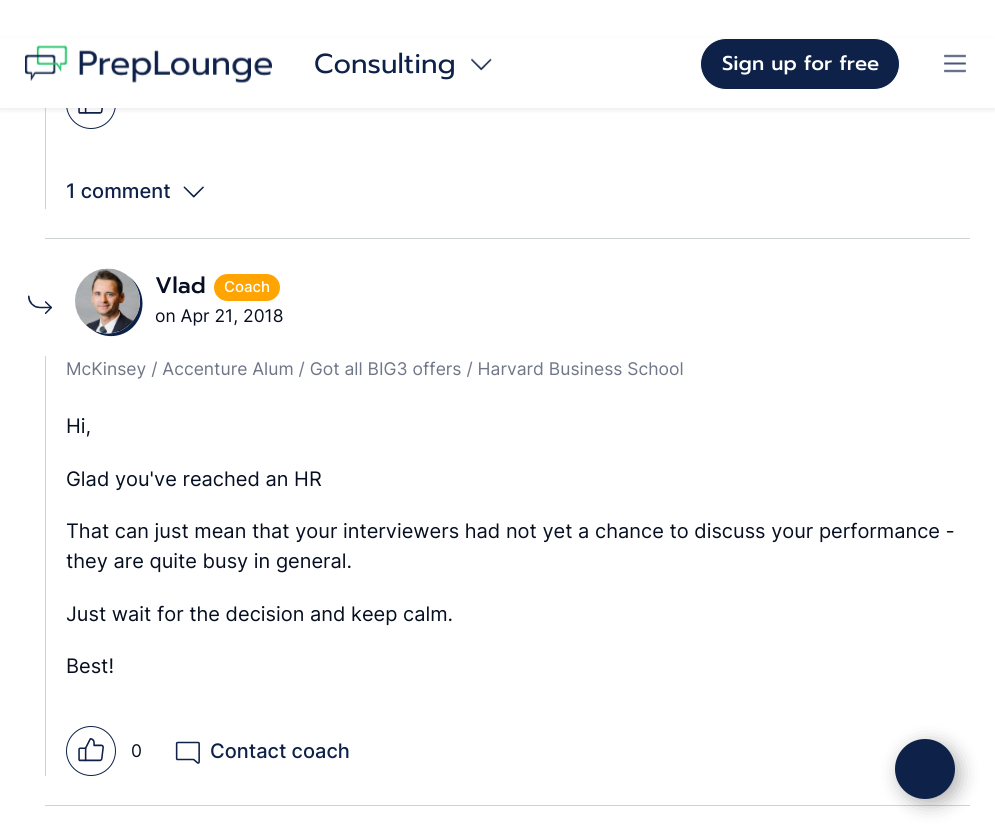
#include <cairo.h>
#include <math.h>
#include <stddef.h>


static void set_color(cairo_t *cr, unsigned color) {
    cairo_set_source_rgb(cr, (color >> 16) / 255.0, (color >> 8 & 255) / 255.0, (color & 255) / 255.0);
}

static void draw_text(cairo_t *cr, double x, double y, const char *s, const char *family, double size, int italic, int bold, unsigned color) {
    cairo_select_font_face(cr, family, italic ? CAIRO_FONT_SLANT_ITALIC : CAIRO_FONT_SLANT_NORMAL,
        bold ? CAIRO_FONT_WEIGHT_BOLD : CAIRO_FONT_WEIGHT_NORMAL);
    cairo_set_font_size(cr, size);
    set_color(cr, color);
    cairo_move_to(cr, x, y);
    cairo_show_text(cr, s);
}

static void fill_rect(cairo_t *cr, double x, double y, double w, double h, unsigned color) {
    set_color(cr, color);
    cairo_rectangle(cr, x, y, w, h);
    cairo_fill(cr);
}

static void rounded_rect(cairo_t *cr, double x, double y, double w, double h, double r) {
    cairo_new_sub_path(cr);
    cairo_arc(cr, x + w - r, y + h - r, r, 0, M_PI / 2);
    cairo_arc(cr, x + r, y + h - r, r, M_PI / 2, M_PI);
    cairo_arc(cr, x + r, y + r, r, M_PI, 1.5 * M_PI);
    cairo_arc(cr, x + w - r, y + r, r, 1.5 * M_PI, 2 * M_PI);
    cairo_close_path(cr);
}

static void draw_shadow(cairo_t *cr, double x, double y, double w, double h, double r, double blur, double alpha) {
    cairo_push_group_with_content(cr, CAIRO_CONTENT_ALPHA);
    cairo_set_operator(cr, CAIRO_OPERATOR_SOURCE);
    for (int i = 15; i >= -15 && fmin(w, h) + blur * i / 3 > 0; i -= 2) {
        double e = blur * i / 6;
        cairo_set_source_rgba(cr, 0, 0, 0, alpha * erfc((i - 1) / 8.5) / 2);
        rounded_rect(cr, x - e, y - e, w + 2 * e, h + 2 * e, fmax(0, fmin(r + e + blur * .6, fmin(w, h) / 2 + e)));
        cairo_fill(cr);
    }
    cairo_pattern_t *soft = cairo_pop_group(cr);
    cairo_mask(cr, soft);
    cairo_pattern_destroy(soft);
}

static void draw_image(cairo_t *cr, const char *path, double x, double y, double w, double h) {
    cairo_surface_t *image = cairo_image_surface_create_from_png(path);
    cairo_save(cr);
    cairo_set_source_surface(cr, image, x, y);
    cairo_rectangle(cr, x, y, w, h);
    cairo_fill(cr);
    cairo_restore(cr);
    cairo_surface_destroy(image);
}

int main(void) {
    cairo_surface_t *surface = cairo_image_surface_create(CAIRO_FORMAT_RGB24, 995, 838);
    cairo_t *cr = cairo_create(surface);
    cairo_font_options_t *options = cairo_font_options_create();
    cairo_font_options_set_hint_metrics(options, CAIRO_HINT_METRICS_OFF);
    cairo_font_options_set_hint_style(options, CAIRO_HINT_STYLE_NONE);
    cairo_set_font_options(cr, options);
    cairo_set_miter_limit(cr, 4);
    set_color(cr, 0xFFFFFF);
    cairo_paint(cr);
    cairo_arc(cr, 91, 104, 24.5, 0, 2 * M_PI);
    set_color(cr, 0x0D2149);
    cairo_set_line_width(cr, 1);
    cairo_stroke(cr);
    fill_rect(cr, 66, 79, 50, 29, 0xFFFFFF);
    fill_rect(cr, 45, 108, 1, 101, 0xCED4D4);
    draw_image(cr, "assets/img4.png", 78, 108, 25, 6);
    cairo_save(cr);
    cairo_set_fill_rule(cr, CAIRO_FILL_RULE_EVEN_ODD);
    cairo_new_path(cr);
    cairo_move_to(cr, 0, 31);
    cairo_line_to(cr, 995, 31);
    cairo_line_to(cr, 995, 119);
    cairo_line_to(cr, 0, 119);
    cairo_close_path(cr);
    cairo_move_to(cr, 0, 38);
    cairo_line_to(cr, 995, 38);
    cairo_line_to(cr, 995, 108);
    cairo_line_to(cr, 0, 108);
    cairo_close_path(cr);
    cairo_clip(cr);
    set_color(cr, 0x000000);
    draw_shadow(cr, 0, 40, 995, 70, 0, 2.5, 0.08);
    cairo_restore(cr);
    draw_image(cr, "assets/img1.png", 25, 45, 247, 38);
    draw_text(cr, 314, 73, "Consulting", "Prompt", 27.5, 0, 0, 0x0D2149);
    draw_image(cr, "assets/img2.png", 471, 58, 21, 13);
    rounded_rect(cr, 700.5, 38.5, 199, 51, 25.5);
    cairo_fill_preserve(cr);
    set_color(cr, 0xFFFFFF);
    cairo_stroke(cr);
    draw_text(cr, 722, 70, "Sign up for free", "Prompt Medium", 20, 0, 0, 0xFFFFFF);
    draw_image(cr, "assets/img3.png", 944, 54, 22, 19);
    draw_text(cr, 66, 198, "1 comment", "Inter Medium", 20, 0, 0, 0x0D2149);
    draw_image(cr, "assets/img5.png", 183, 186, 21, 12);
    fill_rect(cr, 45, 238, 925, 1, 0xCED4D4);
    draw_image(cr, "assets/img6.png", 28, 295, 24, 19);
    set_color(cr, 0x0D2149);
    cairo_new_path(cr);
    cairo_move_to(cr, 90, 328);
    cairo_curve_to(cr, 104, 341, 127, 338, 137, 322);
    cairo_curve_to(cr, 147, 307, 143, 286, 128, 276);
    cairo_curve_to(cr, 141, 287, 144, 306, 134, 319);
    cairo_curve_to(cr, 125, 334, 104, 338, 90, 328);
    cairo_close_path(cr);
    cairo_fill(cr);
    draw_image(cr, "assets/img7.png", 75, 268, 65, 66);
    draw_text(cr, 155, 293, "Vlad", "Prompt Medium", 22.5, 0, 0, 0x060F21);
    set_color(cr, 0xFFA400);
    rounded_rect(cr, 214, 274, 66, 27, 13.5);
    cairo_fill(cr);
    draw_text(cr, 224, 292, "Coach", "Inter Medium", 15, 0, 0, 0xFFFFFF);
    draw_text(cr, 155, 322, "on Apr 21, 2018", "Inter", 17.5, 0, 0, 0x060F21);
    fill_rect(cr, 45, 356, 1, 420, 0xCED4D4);
    draw_text(cr, 66, 375, "McKinsey / Accenture Alum / Got all BIG3 offers / Harvard Business School", "Inter", 17.5, 0, 0, 0x6E7687);
    draw_text(cr, 66, 433, "Hi,", "Inter", 20, 0, 0, 0x060F21);
    draw_text(cr, 66, 486, "Glad you've reached an HR", "Inter", 20, 0, 0, 0x060F21);
    draw_text(cr, 66, 538, "That can just mean that your interviewers had not yet a chance to discuss your performance -", "Inter", 20, 0, 0, 0x060F21);
    draw_text(cr, 66, 568, "they are quite busy in general.", "Inter", 20, 0, 0, 0x060F21);
    draw_text(cr, 66, 621, "Just wait for the decision and keep calm.", "Inter", 20, 0, 0, 0x060F21);
    draw_text(cr, 66, 673, "Best!", "Inter", 20, 0, 0, 0x060F21);
    cairo_new_path(cr);
    cairo_arc(cr, 91, 751, 24.5, 0, 2 * M_PI);
    set_color(cr, 0x0D2149);
    cairo_stroke(cr);
    draw_image(cr, "assets/img8.png", 78, 738, 26, 24);
    draw_text(cr, 131, 757, "0", "Inter", 17.5, 0, 0, 0x060F21);
    draw_image(cr, "assets/img9.png", 175, 741, 25, 23);
    draw_text(cr, 210, 758, "Contact coach", "Inter Medium", 20, 0, 0, 0x0D2149);
    fill_rect(cr, 45, 805, 925, 1, 0xCED4D4);
    set_color(cr, 0x000000);
    draw_shadow(cr, 900, 744, 60, 60, 30, 9.5, 0.3);
    set_color(cr, 0x0D2149);
    cairo_arc(cr, 925, 769, 30, 0, 2 * M_PI);
    cairo_fill(cr);
    cairo_surface_write_to_png(surface, "output.png");
    cairo_font_options_destroy(options);
    cairo_destroy(cr);
    cairo_surface_destroy(surface);
    return 0;
}
